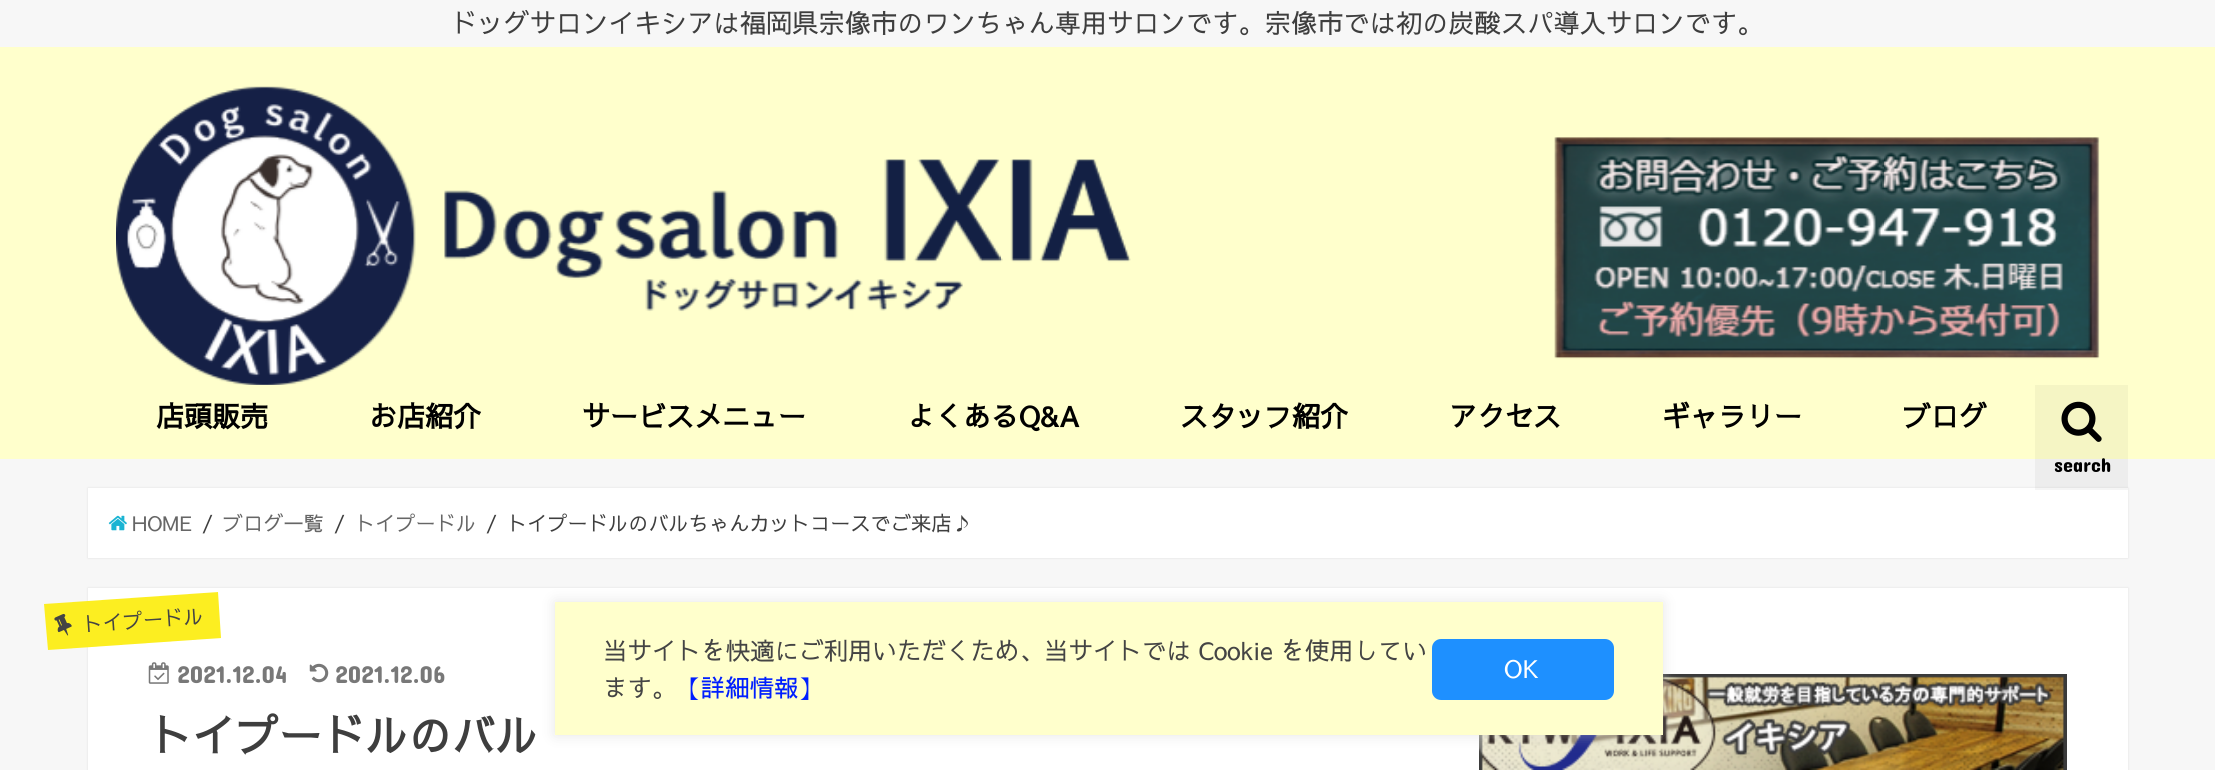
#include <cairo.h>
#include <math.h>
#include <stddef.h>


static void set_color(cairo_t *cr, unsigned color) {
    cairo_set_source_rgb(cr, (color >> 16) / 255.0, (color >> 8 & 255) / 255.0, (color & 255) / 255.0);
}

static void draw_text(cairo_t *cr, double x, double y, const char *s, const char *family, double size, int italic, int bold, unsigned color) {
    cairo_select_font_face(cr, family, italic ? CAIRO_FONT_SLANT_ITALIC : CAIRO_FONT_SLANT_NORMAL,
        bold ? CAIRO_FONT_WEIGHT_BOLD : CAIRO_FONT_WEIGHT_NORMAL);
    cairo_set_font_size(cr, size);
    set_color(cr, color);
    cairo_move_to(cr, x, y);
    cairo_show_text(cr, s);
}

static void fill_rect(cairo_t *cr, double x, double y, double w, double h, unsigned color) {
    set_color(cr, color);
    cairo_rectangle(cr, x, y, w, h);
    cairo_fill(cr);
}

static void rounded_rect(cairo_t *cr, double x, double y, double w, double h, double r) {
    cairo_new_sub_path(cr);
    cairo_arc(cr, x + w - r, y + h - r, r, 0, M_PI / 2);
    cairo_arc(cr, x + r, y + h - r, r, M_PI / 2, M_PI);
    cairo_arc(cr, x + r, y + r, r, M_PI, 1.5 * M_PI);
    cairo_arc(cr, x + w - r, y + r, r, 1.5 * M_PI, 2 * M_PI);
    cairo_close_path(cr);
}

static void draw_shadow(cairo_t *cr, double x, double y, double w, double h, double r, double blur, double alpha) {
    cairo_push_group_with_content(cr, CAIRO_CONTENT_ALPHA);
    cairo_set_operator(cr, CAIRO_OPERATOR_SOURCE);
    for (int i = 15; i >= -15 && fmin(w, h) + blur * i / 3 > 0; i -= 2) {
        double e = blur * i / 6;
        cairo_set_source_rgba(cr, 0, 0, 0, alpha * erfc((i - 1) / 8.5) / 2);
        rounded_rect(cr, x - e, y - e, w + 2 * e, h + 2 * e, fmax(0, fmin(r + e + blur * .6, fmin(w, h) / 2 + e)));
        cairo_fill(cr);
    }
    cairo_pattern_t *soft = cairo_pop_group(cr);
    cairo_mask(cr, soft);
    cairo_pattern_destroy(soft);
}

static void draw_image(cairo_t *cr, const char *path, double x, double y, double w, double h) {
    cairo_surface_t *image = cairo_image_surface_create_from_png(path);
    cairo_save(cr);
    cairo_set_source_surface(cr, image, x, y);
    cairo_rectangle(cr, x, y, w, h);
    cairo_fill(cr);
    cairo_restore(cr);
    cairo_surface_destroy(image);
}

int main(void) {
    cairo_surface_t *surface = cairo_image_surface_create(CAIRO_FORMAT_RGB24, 2215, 770);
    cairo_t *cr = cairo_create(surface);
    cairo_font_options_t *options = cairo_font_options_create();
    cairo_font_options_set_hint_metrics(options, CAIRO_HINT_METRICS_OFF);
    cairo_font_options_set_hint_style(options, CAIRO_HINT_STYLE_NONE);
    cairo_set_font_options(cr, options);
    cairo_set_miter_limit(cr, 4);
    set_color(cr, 0xF7F7F7);
    cairo_paint(cr);
    draw_text(cr, 451, 33, "ドッグサロンイキシアは福岡県宗像市のワンちゃん専用サロンです。宗像市では初の炭酸スパ導入サロンです。", "Sawarabi Gothic", 26.25, 0, 0, 0x3E3E3E);
    fill_rect(cr, 0, 47, 2215, 412, 0xFFFFCC);
    draw_image(cr, "assets/img1.png", 116, 86, 1984, 299);
    draw_text(cr, 156, 427, "店頭販売", "Sawarabi Gothic", 28, 0, 1, 0x000000);
    draw_text(cr, 369, 427, "お店紹介", "Sawarabi Gothic", 28, 0, 1, 0x000000);
    draw_text(cr, 582, 427, "サービスメニュー", "Sawarabi Gothic", 28, 0, 1, 0x000000);
    draw_text(cr, 907, 427, "よくあるQ&A", "Sawarabi Gothic", 28, 0, 1, 0x000000);
    draw_text(cr, 1180, 427, "スタッフ紹介", "Sawarabi Gothic", 28, 0, 1, 0x000000);
    draw_text(cr, 1449, 427, "アクセス", "Sawarabi Gothic", 28, 0, 1, 0x000000);
    draw_text(cr, 1662, 427, "ギャラリー", "Sawarabi Gothic", 28, 0, 1, 0x000000);
    draw_text(cr, 1903, 427, "ブログ", "Sawarabi Gothic", 28, 0, 1, 0x000000);
    set_color(cr, 0xDDDDDD);
    draw_shadow(cr, 88, 488, 2040, 70, 0, 1, 1);
    fill_rect(cr, 88, 488, 2040, 70, 0xFFFFFF);
    cairo_set_source_rgba(cr, 0, 0, 0, 0.04);
    cairo_rectangle(cr, 2035, 385, 93, 105);
    cairo_fill(cr);
    draw_image(cr, "assets/img2.png", 2061, 401, 41, 41);
    draw_text(cr, 2054, 472, "search", "Concert One", 20.2, 0, 0, 0x000000);
    draw_image(cr, "assets/img3.png", 108, 515, 19, 16);
    draw_text(cr, 132, 531, "HOME", "Sawarabi Gothic", 20.2, 0, 0, 0x666666);
    draw_text(cr, 202, 531, "/", "Sawarabi Gothic", 20.2, 0, 0, 0x3E3E3E);
    draw_text(cr, 223, 531, "ブログ一覧", "Sawarabi Gothic", 20.2, 0, 0, 0x666666);
    draw_text(cr, 334, 531, "/", "Sawarabi Gothic", 20.2, 0, 0, 0x3E3E3E);
    draw_text(cr, 355, 531, "トイプードル", "Sawarabi Gothic", 20.2, 0, 0, 0x666666);
    draw_text(cr, 486, 531, "/", "Sawarabi Gothic", 20.2, 0, 0, 0x3E3E3E);
    draw_text(cr, 507, 531, "トイプードルのバルちゃんカットコースでご来店♪", "Sawarabi Gothic", 20.2, 0, 0, 0x3E3E3E);
    set_color(cr, 0xDDDDDD);
    draw_shadow(cr, 88, 588, 2040, 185, 0, 1, 1);
    fill_rect(cr, 88, 588, 2040, 182, 0xFFFFFF);
    set_color(cr, 0xFCEE21);
    cairo_new_path(cr);
    cairo_move_to(cr, 44, 604);
    cairo_line_to(cr, 218, 592);
    cairo_line_to(cr, 221, 638);
    cairo_line_to(cr, 48, 650);
    cairo_close_path(cr);
    cairo_fill(cr);
    draw_image(cr, "assets/img4.png", 54, 613, 18, 23);
    cairo_save(cr);
    cairo_translate(cr, 83, 632);
    cairo_rotate(cr, -4 * M_PI / 180);
    draw_text(cr, 0, 0, "トイプードル", "Sawarabi Gothic", 20.2, 0, 0, 0x444444);
    cairo_restore(cr);
    draw_image(cr, "assets/img5.png", 148, 662, 21, 22);
    draw_text(cr, 177, 683, "2021.12.04", "Concert One", 24.5, 0, 0, 0x787878);
    draw_image(cr, "assets/img6.png", 309, 663, 20, 20);
    draw_text(cr, 335, 683, "2021.12.06", "Concert One", 24.5, 0, 0, 0x787878);
    draw_text(cr, 149, 752, "トイプードルのバル", "Sawarabi Gothic", 43.25, 0, 1, 0x3E3E3E);
    draw_image(cr, "assets/img7.png", 1479, 674, 588, 96);
    set_color(cr, 0xCCCCCC);
    draw_shadow(cr, 555, 602, 1108, 133, 0, 7, 0.5);
    fill_rect(cr, 555, 602, 1108, 133, 0xFFFFCC);
    draw_text(cr, 603, 660, "当サイトを快適にご利用いただくため、当サイトでは Cookie を使用してい", "Sawarabi Gothic", 24.5, 0, 0, 0x444444);
    draw_text(cr, 603, 697, "ます。", "Sawarabi Gothic", 24.5, 0, 0, 0x444444);
    draw_text(cr, 676, 697, "【詳細情報】", "Sawarabi Gothic", 24.5, 0, 0, 0x001FFF);
    set_color(cr, 0x1E90FF);
    rounded_rect(cr, 1432, 639, 182, 61, 9);
    cairo_fill(cr);
    draw_text(cr, 1504, 678, "OK", "Sawarabi Gothic", 24.5, 0, 0, 0xFFFFFF);
    cairo_surface_write_to_png(surface, "output.png");
    cairo_font_options_destroy(options);
    cairo_destroy(cr);
    cairo_surface_destroy(surface);
    return 0;
}
